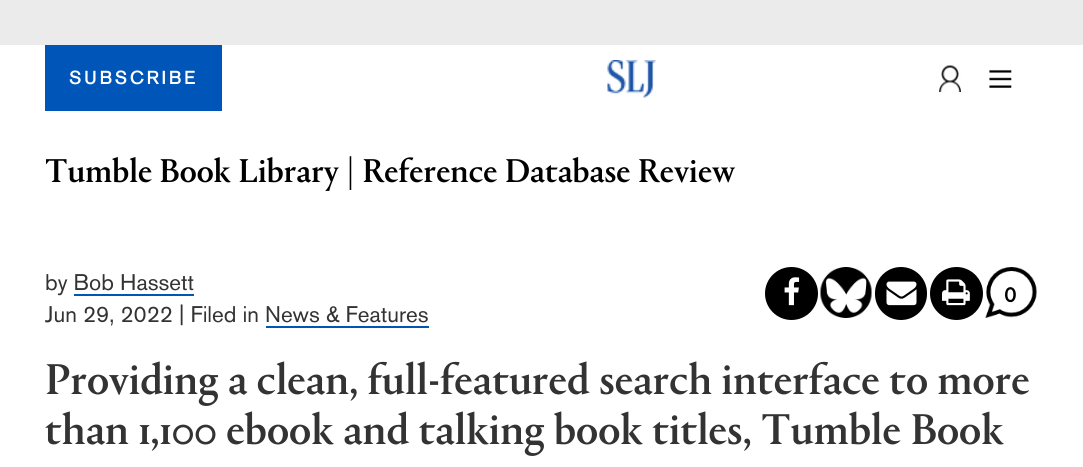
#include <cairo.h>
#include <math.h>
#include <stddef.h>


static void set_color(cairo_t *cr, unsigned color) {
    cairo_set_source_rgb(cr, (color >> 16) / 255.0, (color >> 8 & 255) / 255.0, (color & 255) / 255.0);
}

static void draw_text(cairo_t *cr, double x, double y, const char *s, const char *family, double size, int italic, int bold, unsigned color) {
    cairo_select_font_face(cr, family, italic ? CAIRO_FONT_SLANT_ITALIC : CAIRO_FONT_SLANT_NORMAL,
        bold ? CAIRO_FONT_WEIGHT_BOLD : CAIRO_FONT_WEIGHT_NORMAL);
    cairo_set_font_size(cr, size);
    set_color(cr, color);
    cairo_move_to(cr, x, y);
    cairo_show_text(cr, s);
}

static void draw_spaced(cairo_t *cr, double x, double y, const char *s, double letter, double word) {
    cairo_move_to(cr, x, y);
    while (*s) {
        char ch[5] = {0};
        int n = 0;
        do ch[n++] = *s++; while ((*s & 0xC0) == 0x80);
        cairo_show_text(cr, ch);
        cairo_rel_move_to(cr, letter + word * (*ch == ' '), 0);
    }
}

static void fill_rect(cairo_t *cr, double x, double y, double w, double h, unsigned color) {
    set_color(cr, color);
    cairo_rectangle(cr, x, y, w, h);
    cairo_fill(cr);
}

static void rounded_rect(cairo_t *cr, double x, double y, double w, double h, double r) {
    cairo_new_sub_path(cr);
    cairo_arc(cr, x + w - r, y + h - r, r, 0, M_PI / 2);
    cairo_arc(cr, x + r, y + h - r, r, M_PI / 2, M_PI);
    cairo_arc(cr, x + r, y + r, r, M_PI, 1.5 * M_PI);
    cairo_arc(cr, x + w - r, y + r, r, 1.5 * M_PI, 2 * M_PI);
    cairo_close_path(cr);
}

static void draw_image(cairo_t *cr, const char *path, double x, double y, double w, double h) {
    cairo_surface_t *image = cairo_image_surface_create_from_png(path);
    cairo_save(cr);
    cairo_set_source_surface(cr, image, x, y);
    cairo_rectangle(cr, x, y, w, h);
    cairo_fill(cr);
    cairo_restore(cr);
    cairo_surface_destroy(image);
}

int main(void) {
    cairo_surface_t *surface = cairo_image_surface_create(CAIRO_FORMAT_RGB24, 1083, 467);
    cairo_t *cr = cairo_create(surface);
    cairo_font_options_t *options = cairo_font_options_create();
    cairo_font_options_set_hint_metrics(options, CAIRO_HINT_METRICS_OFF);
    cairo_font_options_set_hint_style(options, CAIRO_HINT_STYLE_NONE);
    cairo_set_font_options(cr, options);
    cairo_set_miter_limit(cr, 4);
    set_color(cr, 0xFFFFFF);
    cairo_paint(cr);
    fill_rect(cr, 0, 0, 1083, 45, 0xEBEBEB);
    fill_rect(cr, 45, 45, 177, 66, 0x0055B8);
    cairo_select_font_face(cr, "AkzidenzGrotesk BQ", CAIRO_FONT_SLANT_NORMAL, CAIRO_FONT_WEIGHT_BOLD);
    cairo_set_font_size(cr, 18);
    set_color(cr, 0xFFFFFF);
    draw_spaced(cr, 69, 84, "SUBSCRIBE", 3, 0);
    draw_image(cr, "assets/img1.png", 607, 60, 49, 38);
    draw_image(cr, "assets/img2.png", 939, 65, 22, 28);
    draw_image(cr, "assets/img3.png", 989, 69, 23, 19);
    draw_text(cr, 45, 182, "Tumble Book Library | Reference Database Review", "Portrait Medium", 34.5, 0, 0, 0x000000);
    draw_text(cr, 45, 290, "by Bob Hassett", "AkzidenzGrotesk BQ Medium", 22.5, 0, 0, 0x333333);
    fill_rect(cr, 74, 294, 120, 2, 0x0055B8);
    draw_text(cr, 45, 322, "Jun 29, 2022 | Filed in News & Features", "AkzidenzGrotesk BQ Medium", 22.5, 0, 0, 0x333333);
    fill_rect(cr, 266, 326, 163, 2, 0x0055B8);
    set_color(cr, 0x000000);
    cairo_new_path(cr);
    cairo_arc(cr, 791.5, 293.5, 26.5, 0, 2 * M_PI);
    cairo_fill(cr);
    draw_image(cr, "assets/img4.png", 784, 277, 16, 29);
    draw_image(cr, "assets/img5.png", 820, 267, 52, 51);
    rounded_rect(cr, 875, 267, 52, 53, 26);
    cairo_fill(cr);
    draw_image(cr, "assets/img6.png", 886, 281, 31, 25);
    cairo_arc(cr, 956.5, 293.5, 26.5, 0, 2 * M_PI);
    cairo_fill(cr);
    draw_image(cr, "assets/img7.png", 942, 279, 28, 27);
    draw_image(cr, "assets/img8.png", 985, 267, 52, 51);
    draw_text(cr, 1004, 302, "0", "AkzidenzGrotesk BQ", 21, 0, 1, 0x000000);
    draw_text(cr, 45, 394, "Providing a clean, full-featured search interface to more", "Portrait Medium", 45, 0, 0, 0x333333);
    draw_text(cr, 45, 444, "than 1,100 ebook and talking book titles, Tumble Book", "Portrait Medium", 45, 0, 0, 0x333333);
    cairo_surface_write_to_png(surface, "output.png");
    cairo_font_options_destroy(options);
    cairo_destroy(cr);
    cairo_surface_destroy(surface);
    return 0;
}
